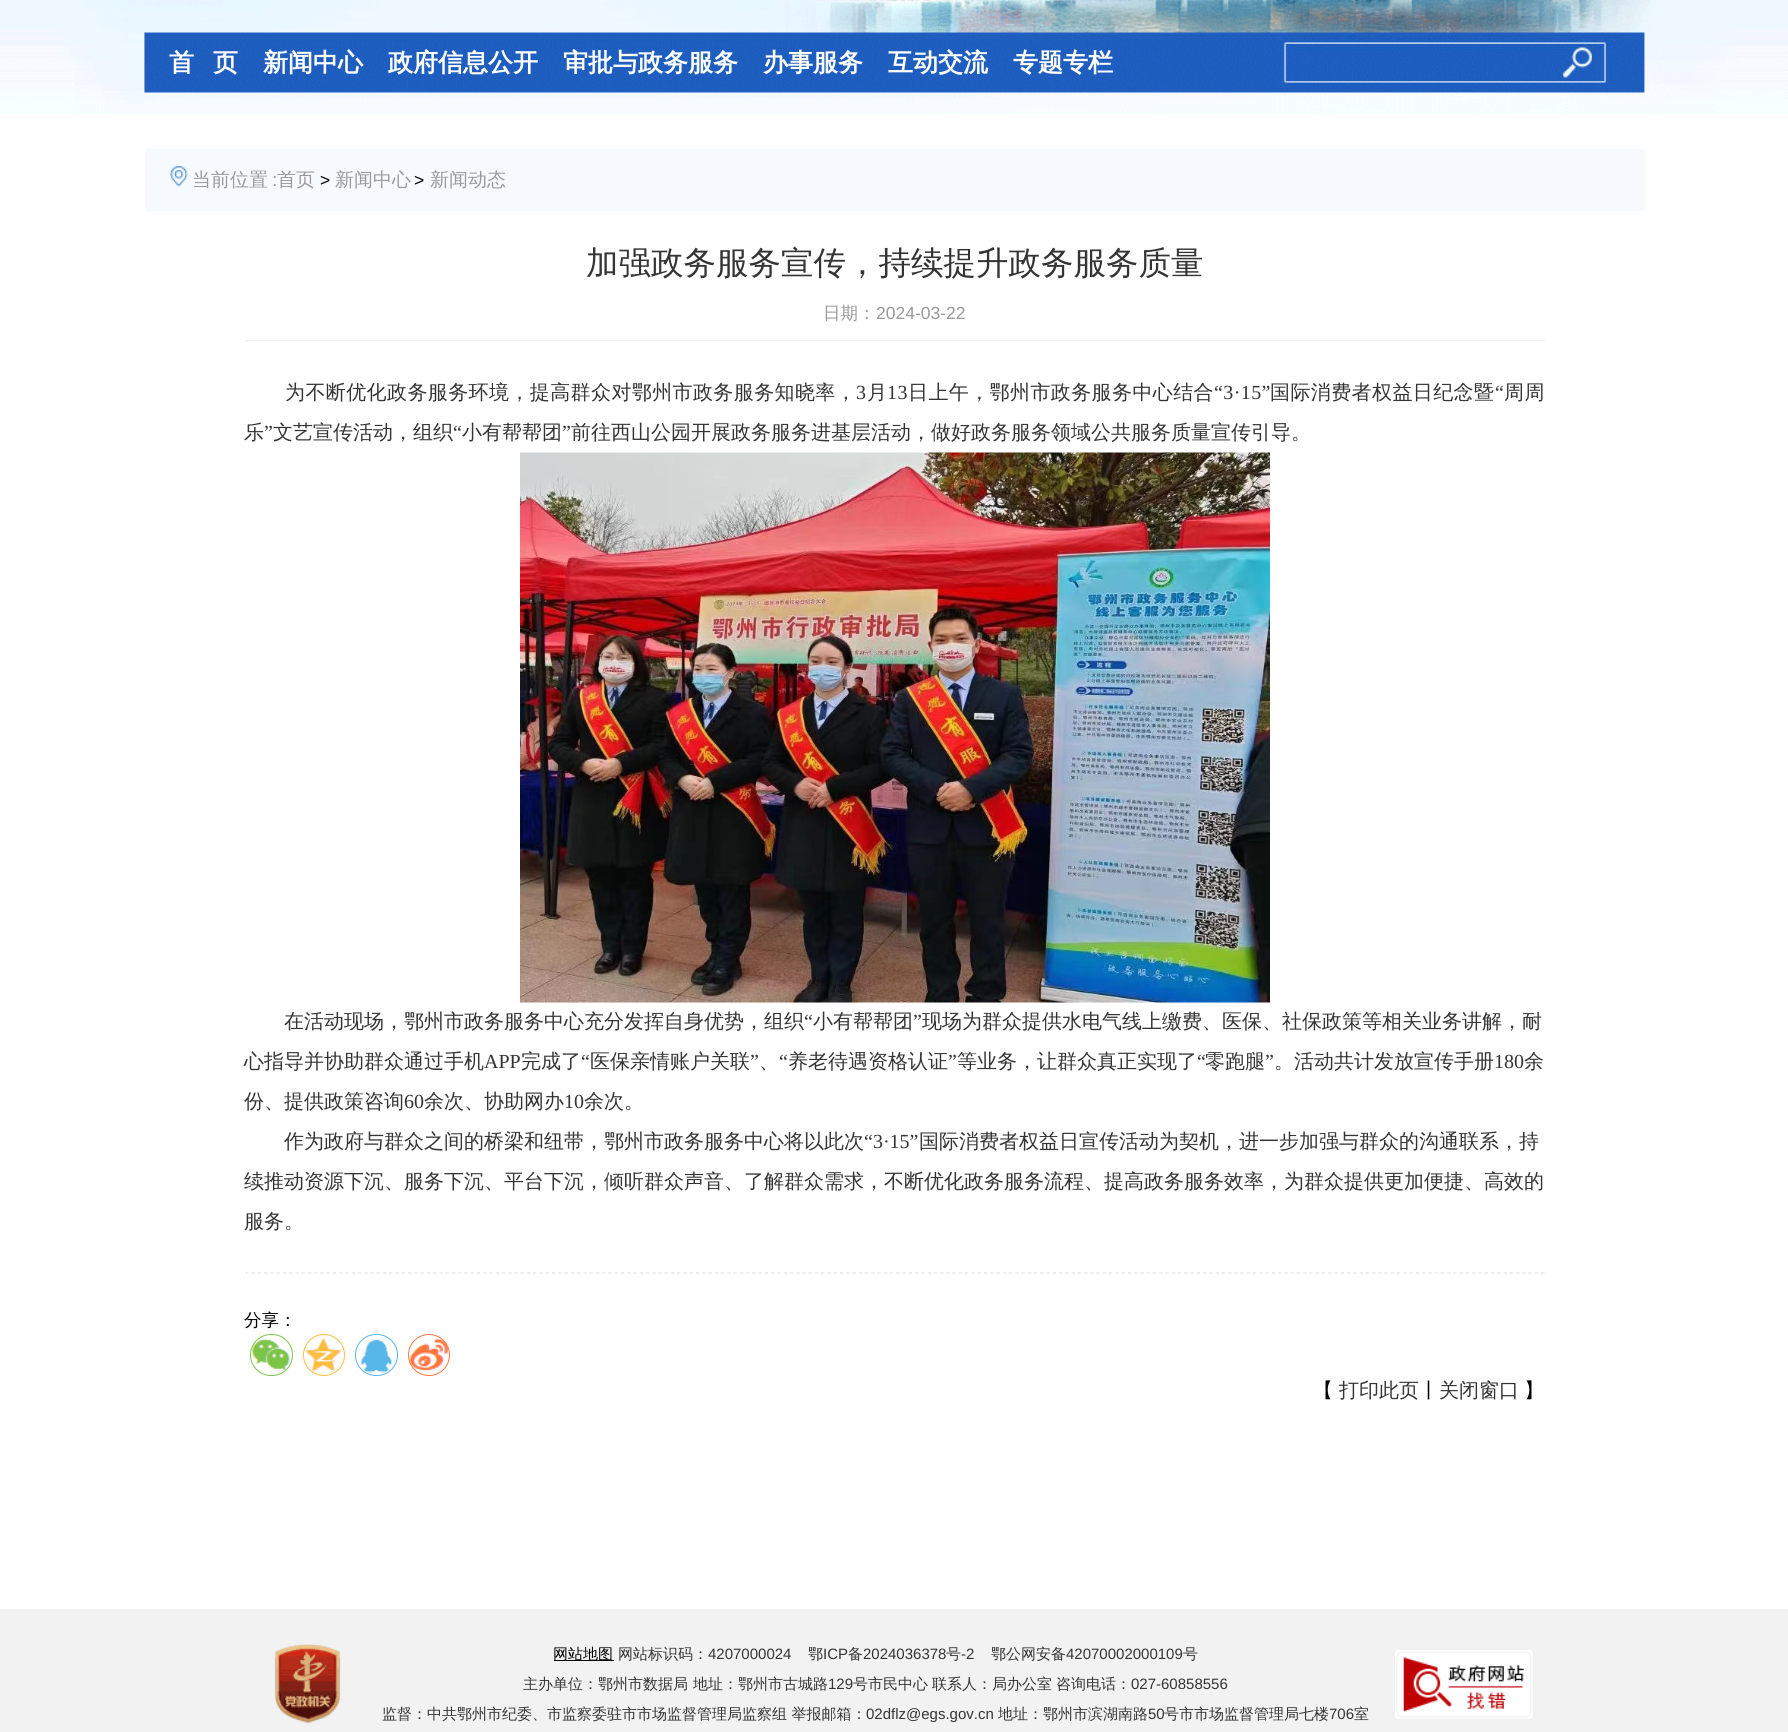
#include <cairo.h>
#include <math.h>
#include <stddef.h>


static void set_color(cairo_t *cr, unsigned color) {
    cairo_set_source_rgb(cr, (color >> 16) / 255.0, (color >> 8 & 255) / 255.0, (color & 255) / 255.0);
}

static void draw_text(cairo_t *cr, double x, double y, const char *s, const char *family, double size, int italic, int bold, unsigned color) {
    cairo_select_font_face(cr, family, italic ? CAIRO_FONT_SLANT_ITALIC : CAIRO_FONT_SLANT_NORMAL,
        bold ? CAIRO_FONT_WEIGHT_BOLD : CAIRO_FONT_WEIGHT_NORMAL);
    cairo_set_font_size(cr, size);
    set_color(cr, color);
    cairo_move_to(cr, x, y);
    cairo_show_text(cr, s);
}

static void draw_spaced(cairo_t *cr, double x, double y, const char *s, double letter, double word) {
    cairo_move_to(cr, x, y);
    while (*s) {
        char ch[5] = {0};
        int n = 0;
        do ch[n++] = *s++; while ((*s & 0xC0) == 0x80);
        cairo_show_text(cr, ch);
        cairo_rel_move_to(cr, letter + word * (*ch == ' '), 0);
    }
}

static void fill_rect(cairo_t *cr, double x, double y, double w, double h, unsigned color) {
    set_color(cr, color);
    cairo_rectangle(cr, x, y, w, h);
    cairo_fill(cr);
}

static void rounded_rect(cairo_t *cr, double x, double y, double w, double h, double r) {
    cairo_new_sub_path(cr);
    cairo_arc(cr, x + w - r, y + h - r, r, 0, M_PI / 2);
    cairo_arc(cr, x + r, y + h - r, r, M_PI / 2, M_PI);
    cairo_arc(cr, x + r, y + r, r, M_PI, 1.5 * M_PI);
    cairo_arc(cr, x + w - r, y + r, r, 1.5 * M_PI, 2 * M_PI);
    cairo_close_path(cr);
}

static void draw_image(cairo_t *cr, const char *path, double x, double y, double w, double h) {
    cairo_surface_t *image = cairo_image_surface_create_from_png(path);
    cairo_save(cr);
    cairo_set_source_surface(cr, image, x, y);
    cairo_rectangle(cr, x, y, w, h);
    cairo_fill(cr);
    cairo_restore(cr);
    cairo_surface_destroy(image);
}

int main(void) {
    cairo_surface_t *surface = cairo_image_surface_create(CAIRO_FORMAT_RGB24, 1788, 1732);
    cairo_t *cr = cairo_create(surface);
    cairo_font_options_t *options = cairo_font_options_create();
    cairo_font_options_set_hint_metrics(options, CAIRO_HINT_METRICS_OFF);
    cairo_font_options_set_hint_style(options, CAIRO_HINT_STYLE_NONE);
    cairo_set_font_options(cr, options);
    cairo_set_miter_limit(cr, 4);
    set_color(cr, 0xFFFFFF);
    cairo_paint(cr);
    draw_image(cr, "assets/img1.png", 0, 0, 1788, 114);
    draw_text(cr, 169, 71, "首", "WenQuanYi Zen Hei", 25, 0, 1, 0xFFFFFF);
    draw_text(cr, 213, 71, "页", "WenQuanYi Zen Hei", 25, 0, 1, 0xFFFFFF);
    draw_text(cr, 263, 71, "新闻中心", "WenQuanYi Zen Hei", 25, 0, 1, 0xFFFFFF);
    draw_text(cr, 388, 71, "政府信息公开", "WenQuanYi Zen Hei", 25, 0, 1, 0xFFFFFF);
    draw_text(cr, 563, 71, "审批与政务服务", "WenQuanYi Zen Hei", 25, 0, 1, 0xFFFFFF);
    draw_text(cr, 763, 71, "办事服务", "WenQuanYi Zen Hei", 25, 0, 1, 0xFFFFFF);
    draw_text(cr, 888, 71, "互动交流", "WenQuanYi Zen Hei", 25, 0, 1, 0xFFFFFF);
    draw_text(cr, 1013, 71, "专题专栏", "WenQuanYi Zen Hei", 25, 0, 1, 0xFFFFFF);
    fill_rect(cr, 145, 149, 1500, 62, 0xF6FAFF);
    draw_image(cr, "assets/img2.png", 170, 166, 18, 21);
    draw_text(cr, 192, 186, "当前位置", "WenQuanYi Zen Hei Medium", 19, 0, 0, 0x999999);
    draw_text(cr, 272, 186, ":", "Liberation Sans", 19, 0, 0, 0x999999);
    draw_text(cr, 277, 186, "首页", "WenQuanYi Zen Hei Medium", 19, 0, 0, 0x999999);
    draw_text(cr, 320, 186, ">", "Liberation Sans", 17.5, 0, 0, 0x000000);
    draw_text(cr, 335, 186, "新闻中心", "WenQuanYi Zen Hei Medium", 19, 0, 0, 0x999999);
    draw_text(cr, 414, 186, ">", "Liberation Sans", 17.5, 0, 0, 0x000000);
    draw_text(cr, 430, 186, "新闻动态", "WenQuanYi Zen Hei Medium", 19, 0, 0, 0x999999);
    fill_rect(cr, 245, 340, 1300, 1, 0xEEEEEE);
    draw_text(cr, 586, 274, "加强政务服务宣传，持续提升政务服务质量", "WenQuanYi Zen Hei Medium", 32.5, 0, 0, 0x343434);
    draw_text(cr, 823, 319, "日期：", "WenQuanYi Zen Hei Medium", 17.5, 0, 0, 0x999999);
    draw_text(cr, 876, 319, "2024-03-22", "Liberation Sans", 17.5, 0, 0, 0x999999);
    cairo_select_font_face(cr, "WenQuanYi Zen Hei Medium", CAIRO_FONT_SLANT_NORMAL, CAIRO_FONT_WEIGHT_NORMAL);
    cairo_set_font_size(cr, 20);
    set_color(cr, 0x343434);
    draw_spaced(cr, 285, 399, "为不断优化政务服务环境，提高群众对鄂州市政务服务知晓率，", 0.4, 0);
    cairo_select_font_face(cr, "Liberation Serif", CAIRO_FONT_SLANT_NORMAL, CAIRO_FONT_WEIGHT_NORMAL);
    draw_spaced(cr, 856, 399, "3", 0.4, 0);
    cairo_select_font_face(cr, "WenQuanYi Zen Hei Medium", CAIRO_FONT_SLANT_NORMAL, CAIRO_FONT_WEIGHT_NORMAL);
    draw_spaced(cr, 867, 399, "月", 0.4, 0);
    cairo_select_font_face(cr, "Liberation Serif", CAIRO_FONT_SLANT_NORMAL, CAIRO_FONT_WEIGHT_NORMAL);
    draw_spaced(cr, 887, 399, "13", 0.4, 0);
    cairo_select_font_face(cr, "WenQuanYi Zen Hei Medium", CAIRO_FONT_SLANT_NORMAL, CAIRO_FONT_WEIGHT_NORMAL);
    draw_spaced(cr, 908, 399, "日上午，鄂州市政务服务中心结合", 0.4, 0);
    cairo_select_font_face(cr, "Liberation Serif", CAIRO_FONT_SLANT_NORMAL, CAIRO_FONT_WEIGHT_NORMAL);
    draw_spaced(cr, 1214, 399, "“3·15”", 0.4, 0);
    cairo_select_font_face(cr, "WenQuanYi Zen Hei Medium", CAIRO_FONT_SLANT_NORMAL, CAIRO_FONT_WEIGHT_NORMAL);
    draw_spaced(cr, 1270, 399, "国际消费者权益日纪念暨", 0.4, 0);
    cairo_select_font_face(cr, "Liberation Serif", CAIRO_FONT_SLANT_NORMAL, CAIRO_FONT_WEIGHT_NORMAL);
    draw_spaced(cr, 1495, 399, "“", 0.4, 0);
    cairo_select_font_face(cr, "WenQuanYi Zen Hei Medium", CAIRO_FONT_SLANT_NORMAL, CAIRO_FONT_WEIGHT_NORMAL);
    draw_spaced(cr, 1504, 399, "周周", 0.4, 0);
    draw_text(cr, 244, 439, "乐", "WenQuanYi Zen Hei Medium", 20, 0, 0, 0x343434);
    draw_text(cr, 264, 439, "”", "Liberation Serif", 20, 0, 0, 0x343434);
    draw_text(cr, 273, 439, "文艺宣传活动，组织", "WenQuanYi Zen Hei Medium", 20, 0, 0, 0x343434);
    draw_text(cr, 453, 439, "“", "Liberation Serif", 20, 0, 0, 0x343434);
    draw_text(cr, 462, 439, "小有帮帮团", "WenQuanYi Zen Hei Medium", 20, 0, 0, 0x343434);
    draw_text(cr, 562, 439, "”", "Liberation Serif", 20, 0, 0, 0x343434);
    draw_text(cr, 571, 439, "前往西山公园开展政务服务进基层活动，做好政务服务领域公共服务质量宣传引导。", "WenQuanYi Zen Hei Medium", 20, 0, 0, 0x343434);
    draw_image(cr, "assets/img3.png", 520, 452, 750, 551);
    draw_text(cr, 284, 1028, "在活动现场，鄂州市政务服务中心充分发挥自身优势，组织", "WenQuanYi Zen Hei Medium", 20, 0, 0, 0x343434);
    draw_text(cr, 804, 1028, "“", "Liberation Serif", 20, 0, 0, 0x343434);
    draw_text(cr, 813, 1028, "小有帮帮团", "WenQuanYi Zen Hei Medium", 20, 0, 0, 0x343434);
    draw_text(cr, 913, 1028, "”", "Liberation Serif", 20, 0, 0, 0x343434);
    draw_text(cr, 922, 1028, "现场为群众提供水电气线上缴费、医保、社保政策等相关业务讲解，耐", "WenQuanYi Zen Hei Medium", 20, 0, 0, 0x343434);
    draw_text(cr, 244, 1068, "心指导并协助群众通过手机", "WenQuanYi Zen Hei Medium", 20, 0, 0, 0x343434);
    draw_text(cr, 484, 1068, "APP", "Liberation Serif", 20, 0, 0, 0x343434);
    draw_text(cr, 521, 1068, "完成了", "WenQuanYi Zen Hei Medium", 20, 0, 0, 0x343434);
    draw_text(cr, 581, 1068, "“", "Liberation Serif", 20, 0, 0, 0x343434);
    draw_text(cr, 590, 1068, "医保亲情账户关联", "WenQuanYi Zen Hei Medium", 20, 0, 0, 0x343434);
    draw_text(cr, 750, 1068, "”", "Liberation Serif", 20, 0, 0, 0x343434);
    draw_text(cr, 759, 1068, "、", "WenQuanYi Zen Hei Medium", 20, 0, 0, 0x343434);
    draw_text(cr, 779, 1068, "“", "Liberation Serif", 20, 0, 0, 0x343434);
    draw_text(cr, 788, 1068, "养老待遇资格认证", "WenQuanYi Zen Hei Medium", 20, 0, 0, 0x343434);
    draw_text(cr, 948, 1068, "”", "Liberation Serif", 20, 0, 0, 0x343434);
    draw_text(cr, 957, 1068, "等业务，让群众真正实现了", "WenQuanYi Zen Hei Medium", 20, 0, 0, 0x343434);
    draw_text(cr, 1197, 1068, "“", "Liberation Serif", 20, 0, 0, 0x343434);
    draw_text(cr, 1205, 1068, "零跑腿", "WenQuanYi Zen Hei Medium", 20, 0, 0, 0x343434);
    draw_text(cr, 1265, 1068, "”", "Liberation Serif", 20, 0, 0, 0x343434);
    draw_text(cr, 1274, 1068, "。活动共计发放宣传手册", "WenQuanYi Zen Hei Medium", 20, 0, 0, 0x343434);
    draw_text(cr, 1494, 1068, "180", "Liberation Serif", 20, 0, 0, 0x343434);
    draw_text(cr, 1524, 1068, "余", "WenQuanYi Zen Hei Medium", 20, 0, 0, 0x343434);
    draw_text(cr, 244, 1108, "份、提供政策咨询", "WenQuanYi Zen Hei Medium", 20, 0, 0, 0x343434);
    draw_text(cr, 404, 1108, "60", "Liberation Serif", 20, 0, 0, 0x343434);
    draw_text(cr, 424, 1108, "余次、协助网办", "WenQuanYi Zen Hei Medium", 20, 0, 0, 0x343434);
    draw_text(cr, 564, 1108, "10", "Liberation Serif", 20, 0, 0, 0x343434);
    draw_text(cr, 584, 1108, "余次。", "WenQuanYi Zen Hei Medium", 20, 0, 0, 0x343434);
    draw_text(cr, 284, 1148, "作为政府与群众之间的桥梁和纽带，鄂州市政务服务中心将以此次", "WenQuanYi Zen Hei Medium", 20, 0, 0, 0x343434);
    draw_text(cr, 864, 1148, "“3·15”", "Liberation Serif", 20, 0, 0, 0x343434);
    draw_text(cr, 919, 1148, "国际消费者权益日宣传活动为契机，进一步加强与群众的沟通联系，持", "WenQuanYi Zen Hei Medium", 20, 0, 0, 0x343434);
    draw_text(cr, 244, 1188, "续推动资源下沉、服务下沉、平台下沉，倾听群众声音、了解群众需求，不断优化政务服务流程、提高政务服务效率，为群众提供更加便捷、高效的", "WenQuanYi Zen Hei Medium", 20, 0, 0, 0x343434);
    draw_text(cr, 244, 1228, "服务。", "WenQuanYi Zen Hei Medium", 20, 0, 0, 0x343434);
    cairo_new_path(cr);
    cairo_move_to(cr, 245, 1273);
    cairo_line_to(cr, 1545, 1273);
    set_color(cr, 0xE5E5E5);
    cairo_set_line_width(cr, 1.2);
    cairo_set_dash(cr, (double[]){3.75, 2.51}, 2, 0);
    cairo_stroke(cr);
    draw_text(cr, 244, 1326, "分享：", "WenQuanYi Zen Hei Medium", 17.5, 0, 0, 0x000000);
    draw_image(cr, "assets/img4.png", 252, 1338, 38, 33);
    rounded_rect(cr, 250.5, 1334.5, 42, 41, 20.5);
    set_color(cr, 0x7BC549);
    cairo_set_line_width(cr, 1);
    cairo_set_dash(cr, NULL, 0, 0);
    cairo_stroke(cr);
    draw_image(cr, "assets/img5.png", 306, 1338, 36, 34);
    cairo_arc(cr, 324, 1355, 20.5, 0, 2 * M_PI);
    set_color(cr, 0xFDBE3D);
    cairo_stroke(cr);
    draw_image(cr, "assets/img6.png", 360, 1338, 32, 35);
    rounded_rect(cr, 355.5, 1334.5, 42, 41, 20.5);
    set_color(cr, 0x56B6E7);
    cairo_stroke(cr);
    draw_image(cr, "assets/img7.png", 409, 1338, 40, 33);
    cairo_arc(cr, 429, 1355, 20.5, 0, 2 * M_PI);
    set_color(cr, 0xFF763B);
    cairo_stroke(cr);
    draw_text(cr, 1313, 1397, "【", "WenQuanYi Zen Hei Medium", 20, 0, 0, 0x000000);
    draw_text(cr, 1339, 1397, "打印此页", "WenQuanYi Zen Hei Medium", 20, 0, 0, 0x343434);
    draw_text(cr, 1419, 1397, "丨", "WenQuanYi Zen Hei Medium", 20, 0, 0, 0x000000);
    draw_text(cr, 1439, 1397, "关闭窗口", "WenQuanYi Zen Hei Medium", 20, 0, 0, 0x343434);
    draw_text(cr, 1524, 1397, "】", "WenQuanYi Zen Hei Medium", 20, 0, 0, 0x000000);
    fill_rect(cr, 0, 1609, 1788, 123, 0xF2F2F2);
    draw_image(cr, "assets/img8.png", 274, 1644, 67, 80);
    fill_rect(cr, 554, 1660, 60, 1, 0x000000);
    draw_text(cr, 553, 1659, "网站地图", "WenQuanYi Zen Hei Medium", 15, 0, 0, 0x000000);
    draw_text(cr, 618, 1659, "网站标识码：", "WenQuanYi Zen Hei Medium", 15, 0, 0, 0x343434);
    draw_text(cr, 708, 1659, "4207000024", "Liberation Sans", 15, 0, 0, 0x343434);
    draw_text(cr, 808, 1659, "鄂", "WenQuanYi Zen Hei Medium", 15, 0, 0, 0x343434);
    draw_text(cr, 823, 1659, "ICP", "Liberation Sans", 15, 0, 0, 0x343434);
    draw_text(cr, 848, 1659, "备", "WenQuanYi Zen Hei Medium", 15, 0, 0, 0x343434);
    draw_text(cr, 863, 1659, "2024036378", "Liberation Sans", 15, 0, 0, 0x343434);
    draw_text(cr, 946, 1659, "号", "WenQuanYi Zen Hei Medium", 15, 0, 0, 0x343434);
    draw_text(cr, 961, 1659, "-2", "Liberation Sans", 15, 0, 0, 0x343434);
    draw_text(cr, 991, 1659, "鄂公网安备", "WenQuanYi Zen Hei Medium", 15, 0, 0, 0x343434);
    draw_text(cr, 1066, 1659, "42070002000109", "Liberation Sans", 15, 0, 0, 0x343434);
    draw_text(cr, 1183, 1659, "号", "WenQuanYi Zen Hei Medium", 15, 0, 0, 0x343434);
    draw_text(cr, 523, 1689, "主办单位：鄂州市数据局", "WenQuanYi Zen Hei Medium", 15, 0, 0, 0x343434);
    draw_text(cr, 693, 1689, "地址：鄂州市古城路", "WenQuanYi Zen Hei Medium", 15, 0, 0, 0x343434);
    draw_text(cr, 828, 1689, "129", "Liberation Sans", 15, 0, 0, 0x343434);
    draw_text(cr, 853, 1689, "号市民中心", "WenQuanYi Zen Hei Medium", 15, 0, 0, 0x343434);
    draw_text(cr, 932, 1689, "联系人：局办公室", "WenQuanYi Zen Hei Medium", 15, 0, 0, 0x343434);
    draw_text(cr, 1056, 1689, "咨询电话：", "WenQuanYi Zen Hei Medium", 15, 0, 0, 0x343434);
    draw_text(cr, 1131, 1689, "027-60858556", "Liberation Sans", 15, 0, 0, 0x343434);
    draw_text(cr, 382, 1719, "监督：中共鄂州市纪委、市监察委驻市市场监督管理局监察组 举报邮箱：", "WenQuanYi Zen Hei Medium", 15, 0, 0, 0x343434);
    draw_text(cr, 866, 1719, "02dflz@egs.gov.cn", "Liberation Sans", 15, 0, 0, 0x343434);
    draw_text(cr, 998, 1719, "地址：鄂州市滨湖南路", "WenQuanYi Zen Hei Medium", 15, 0, 0, 0x343434);
    draw_text(cr, 1148, 1719, "50", "Liberation Sans", 15, 0, 0, 0x343434);
    draw_text(cr, 1164, 1719, "号市市场监督管理局七楼", "WenQuanYi Zen Hei Medium", 15, 0, 0, 0x343434);
    draw_text(cr, 1329, 1719, "706", "Liberation Sans", 15, 0, 0, 0x343434);
    draw_text(cr, 1354, 1719, "室", "WenQuanYi Zen Hei Medium", 15, 0, 0, 0x343434);
    draw_image(cr, "assets/img9.png", 1395, 1650, 138, 69);
    cairo_surface_write_to_png(surface, "output.png");
    cairo_font_options_destroy(options);
    cairo_destroy(cr);
    cairo_surface_destroy(surface);
    return 0;
}
